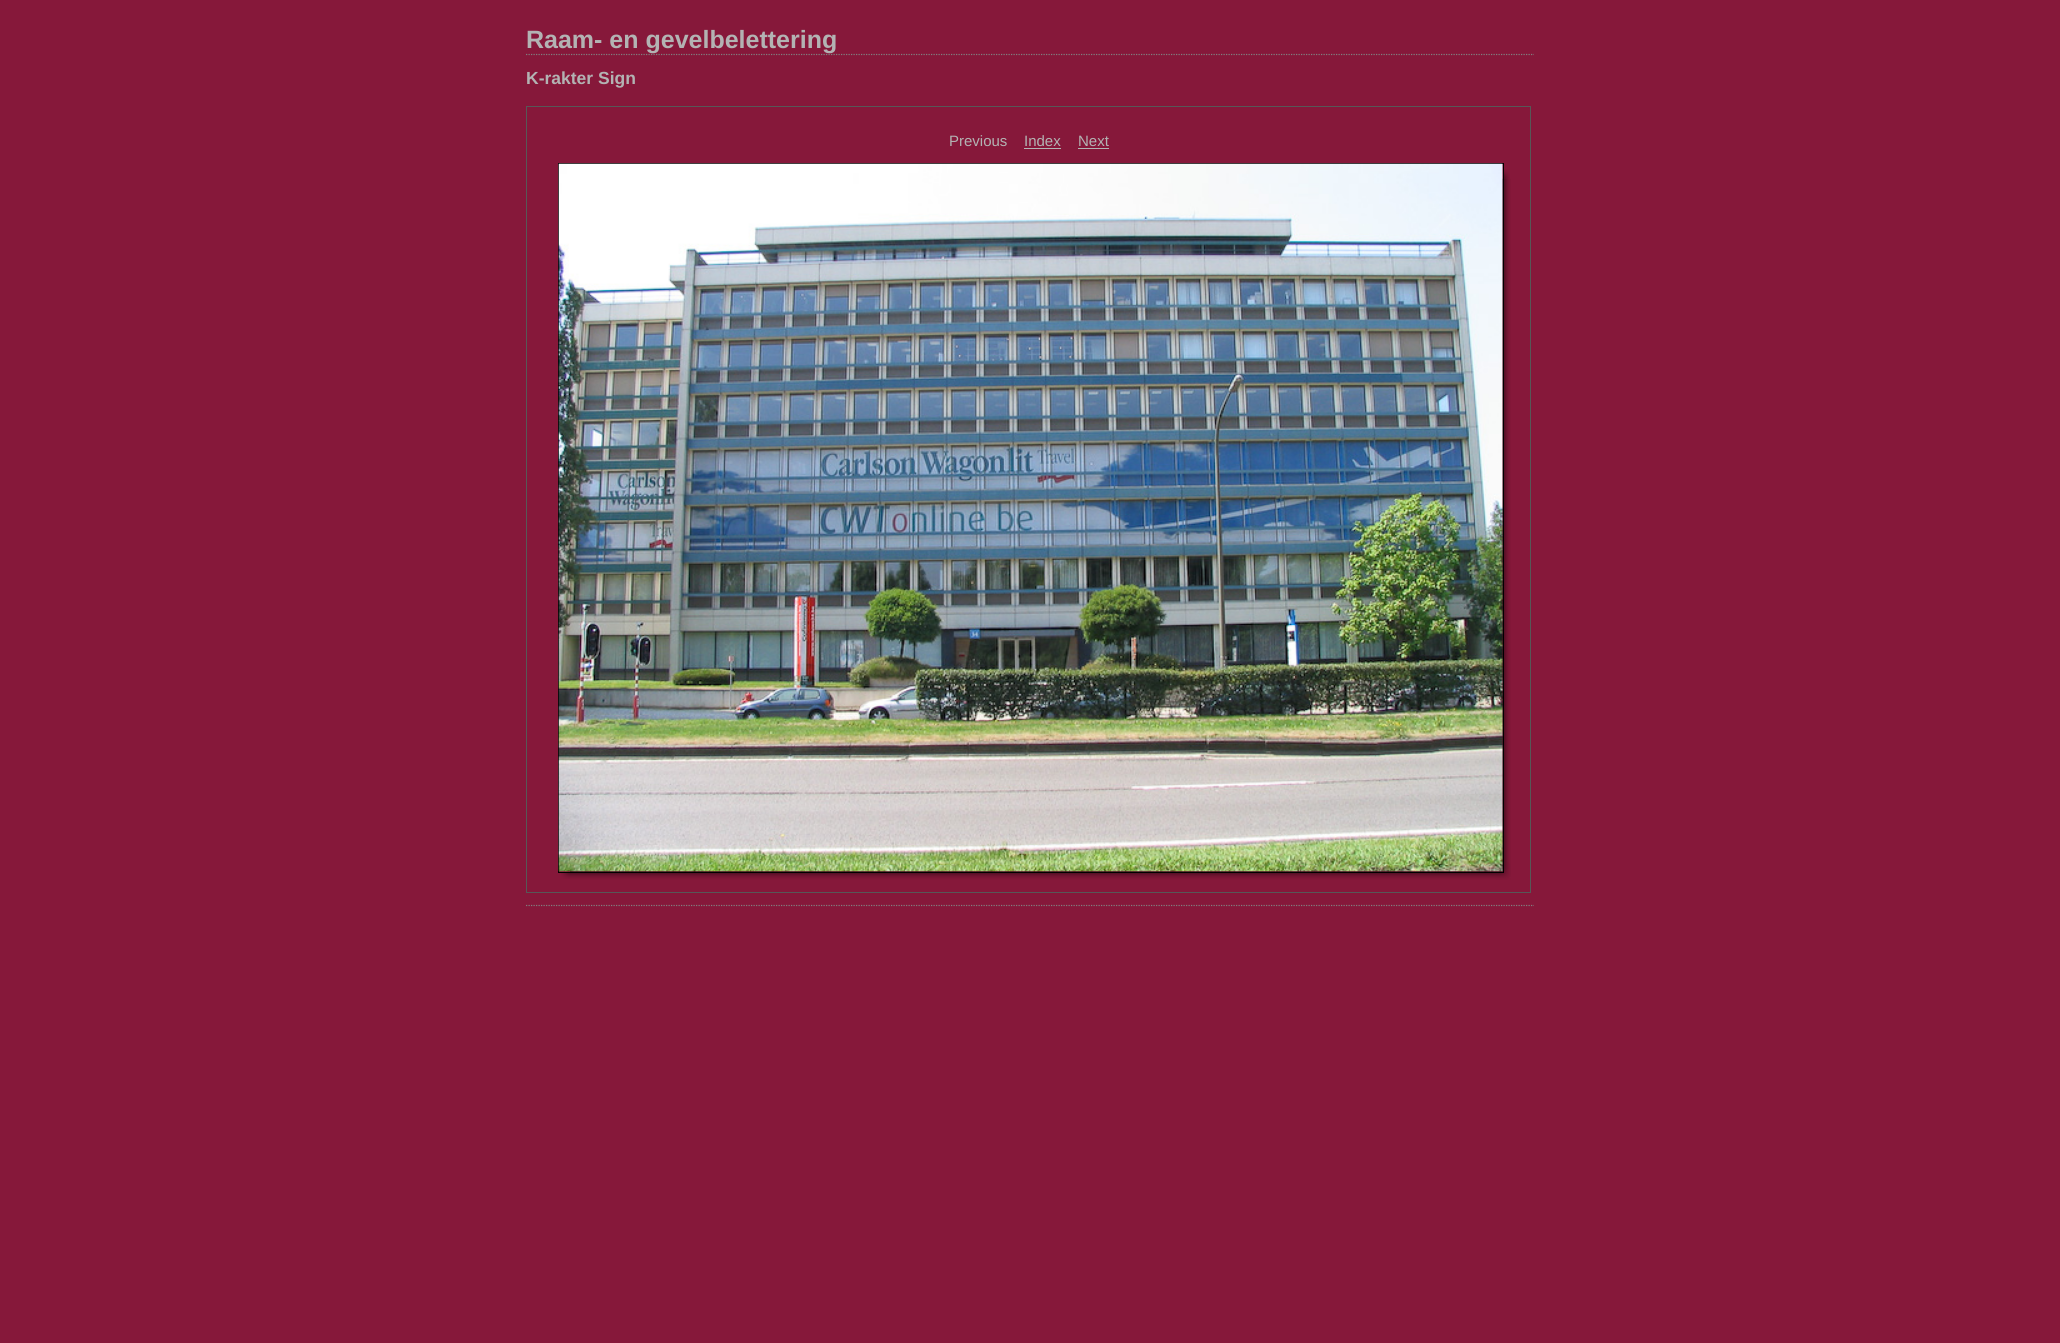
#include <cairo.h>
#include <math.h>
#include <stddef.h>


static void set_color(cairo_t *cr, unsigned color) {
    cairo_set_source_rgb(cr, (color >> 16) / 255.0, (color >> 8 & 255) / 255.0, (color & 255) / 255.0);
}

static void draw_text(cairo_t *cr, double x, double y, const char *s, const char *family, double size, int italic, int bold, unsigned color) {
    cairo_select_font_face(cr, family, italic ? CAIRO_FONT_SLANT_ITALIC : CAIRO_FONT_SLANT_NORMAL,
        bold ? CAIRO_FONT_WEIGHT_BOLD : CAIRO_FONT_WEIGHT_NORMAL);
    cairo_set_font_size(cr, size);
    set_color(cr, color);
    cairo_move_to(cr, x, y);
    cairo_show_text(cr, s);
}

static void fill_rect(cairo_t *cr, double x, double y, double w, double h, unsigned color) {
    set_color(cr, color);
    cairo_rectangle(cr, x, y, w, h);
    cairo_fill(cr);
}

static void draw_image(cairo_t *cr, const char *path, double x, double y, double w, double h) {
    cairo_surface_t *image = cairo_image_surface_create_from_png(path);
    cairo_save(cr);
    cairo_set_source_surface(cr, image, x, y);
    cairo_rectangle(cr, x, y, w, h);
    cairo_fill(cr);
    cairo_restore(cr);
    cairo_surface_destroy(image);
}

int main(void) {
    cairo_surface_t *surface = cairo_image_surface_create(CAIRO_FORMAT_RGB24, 2060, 1343);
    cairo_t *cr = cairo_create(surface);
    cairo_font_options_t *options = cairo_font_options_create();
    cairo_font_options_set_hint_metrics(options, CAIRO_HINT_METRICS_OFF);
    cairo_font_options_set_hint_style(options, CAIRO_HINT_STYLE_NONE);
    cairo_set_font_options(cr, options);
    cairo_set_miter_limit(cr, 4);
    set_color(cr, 0x86183A);
    cairo_paint(cr);
    cairo_new_path(cr);
    cairo_move_to(cr, 526, 54.5);
    cairo_line_to(cr, 1534, 54.5);
    set_color(cr, 0x7F7F7F);
    cairo_set_line_width(cr, 1.2);
    cairo_set_dash(cr, (double[]){1.25, 1.25}, 2, 0);
    cairo_stroke(cr);
    draw_text(cr, 526, 48, "Raam- en gevelbelettering", "Liberation Sans", 25, 0, 1, 0xB3B3B3);
    draw_text(cr, 526, 84, "K-rakter Sign", "Liberation Sans", 17.5, 0, 1, 0xB3B3B3);
    cairo_new_path(cr);
    cairo_move_to(cr, 526, 905.5);
    cairo_line_to(cr, 1534, 905.5);
    set_color(cr, 0x7F7F7F);
    cairo_stroke(cr);
    cairo_rectangle(cr, 526.5, 106.5, 1004, 786);
    set_color(cr, 0x575757);
    cairo_set_line_width(cr, 1);
    cairo_set_dash(cr, NULL, 0, 0);
    cairo_stroke(cr);
    draw_text(cr, 949, 146, "Previous", "Liberation Sans", 15, 0, 0, 0xB3B3B3);
    draw_text(cr, 1024, 146, "Index", "Liberation Sans", 15, 0, 0, 0xB3B3B3);
    fill_rect(cr, 1024, 148, 37, 1, 0xB3B3B3);
    draw_text(cr, 1078, 146, "Next", "Liberation Sans", 15, 0, 0, 0xB3B3B3);
    fill_rect(cr, 1078, 148, 31, 1, 0xB3B3B3);
    draw_image(cr, "assets/img1.png", 570, 178, 941, 702);
    cairo_rectangle(cr, 558.5, 163.5, 945, 709);
    set_color(cr, 0x000000);
    cairo_stroke(cr);
    draw_image(cr, "assets/img2.png", 558, 163, 945, 709);
    draw_image(cr, "assets/img3.png", 1504, 169, 6, 10);
    draw_image(cr, "assets/img4.png", 561, 873, 9, 6);
    cairo_surface_write_to_png(surface, "output.png");
    cairo_font_options_destroy(options);
    cairo_destroy(cr);
    cairo_surface_destroy(surface);
    return 0;
}
